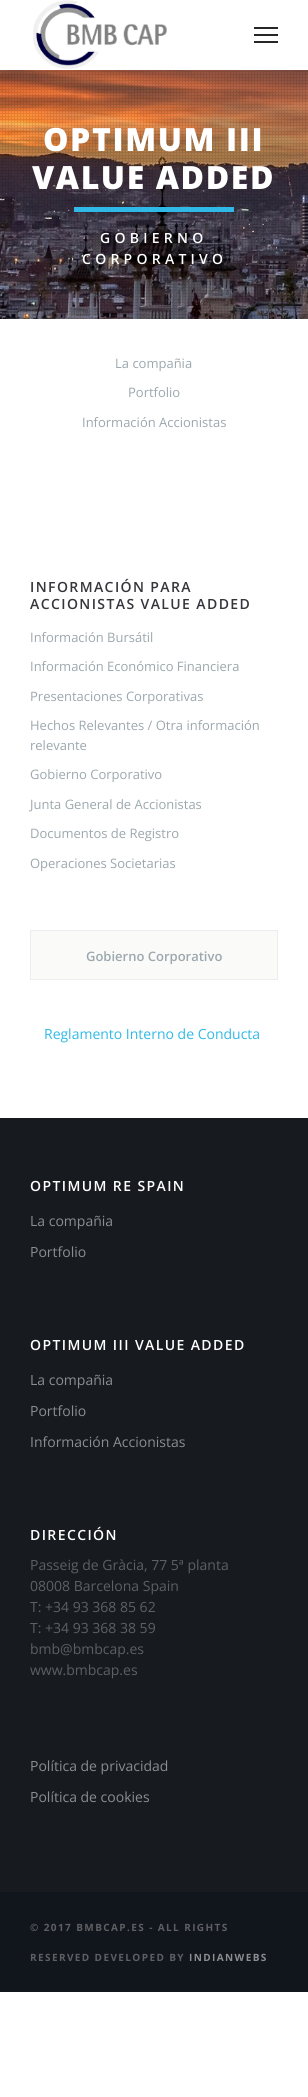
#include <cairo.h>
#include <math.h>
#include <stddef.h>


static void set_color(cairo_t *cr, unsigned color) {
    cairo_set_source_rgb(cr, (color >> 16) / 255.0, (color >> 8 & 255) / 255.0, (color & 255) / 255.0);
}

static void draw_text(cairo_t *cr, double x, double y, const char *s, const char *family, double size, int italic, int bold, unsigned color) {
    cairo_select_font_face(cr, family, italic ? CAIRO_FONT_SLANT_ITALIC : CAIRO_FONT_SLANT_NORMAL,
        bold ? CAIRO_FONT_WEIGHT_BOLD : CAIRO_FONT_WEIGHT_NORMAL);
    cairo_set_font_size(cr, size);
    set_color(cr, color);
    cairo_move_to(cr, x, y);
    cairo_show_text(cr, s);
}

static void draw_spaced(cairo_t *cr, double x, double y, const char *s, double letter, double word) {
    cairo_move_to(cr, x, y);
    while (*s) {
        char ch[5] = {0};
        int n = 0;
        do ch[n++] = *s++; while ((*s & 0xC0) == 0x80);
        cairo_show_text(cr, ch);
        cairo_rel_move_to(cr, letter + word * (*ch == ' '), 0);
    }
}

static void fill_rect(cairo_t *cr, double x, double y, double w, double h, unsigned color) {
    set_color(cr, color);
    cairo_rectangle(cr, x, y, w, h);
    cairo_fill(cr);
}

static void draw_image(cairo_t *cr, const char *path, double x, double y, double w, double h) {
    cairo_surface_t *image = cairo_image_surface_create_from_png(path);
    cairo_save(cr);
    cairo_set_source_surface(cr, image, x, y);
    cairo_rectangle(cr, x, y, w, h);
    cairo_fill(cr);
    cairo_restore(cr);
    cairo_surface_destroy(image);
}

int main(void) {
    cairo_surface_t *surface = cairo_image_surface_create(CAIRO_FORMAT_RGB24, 308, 2097);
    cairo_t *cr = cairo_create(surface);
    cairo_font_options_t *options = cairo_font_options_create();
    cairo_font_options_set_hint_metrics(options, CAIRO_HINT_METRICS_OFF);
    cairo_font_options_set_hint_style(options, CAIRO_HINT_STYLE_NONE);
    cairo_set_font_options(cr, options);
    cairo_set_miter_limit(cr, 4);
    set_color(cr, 0xFFFFFF);
    cairo_paint(cr);
    draw_image(cr, "assets/img1.png", 33, 0, 134, 69);
    fill_rect(cr, 254, 27, 24, 2, 0x262628);
    fill_rect(cr, 254, 34, 24, 2, 0x262628);
    fill_rect(cr, 254, 41, 24, 2, 0x262628);
    draw_image(cr, "assets/img2.png", 0, 70, 308, 249);
    draw_image(cr, "assets/img3.png", 0, 70, 308, 249);
    cairo_select_font_face(cr, "Open Sans ExtraBold", CAIRO_FONT_SLANT_NORMAL, CAIRO_FONT_WEIGHT_NORMAL);
    cairo_set_font_size(cr, 32);
    set_color(cr, 0xFFFFFF);
    draw_spaced(cr, 43, 151, "OPTIMUM III", 1.6, 0);
    draw_spaced(cr, 32, 189, "VALUE ADDED", 1.6, 0);
    fill_rect(cr, 74, 207, 160, 5, 0x30B9E6);
    cairo_select_font_face(cr, "Open Sans SemiBold", CAIRO_FONT_SLANT_NORMAL, CAIRO_FONT_WEIGHT_NORMAL);
    cairo_set_font_size(cr, 14);
    set_color(cr, 0xFFFFFF);
    draw_spaced(cr, 100, 243, "GOBIERNO", 4.25, 0);
    draw_spaced(cr, 82, 264, "CORPORATIVO", 4.25, 0);
    draw_text(cr, 115, 368, "La compañia", "Open Sans", 13, 0, 0, 0x9CA8AE);
    draw_text(cr, 128, 397, "Portfolio", "Open Sans", 13, 0, 0, 0x9CA8AE);
    draw_text(cr, 82, 427, "Información Accionistas", "Open Sans", 13, 0, 0, 0x9CA8AE);
    cairo_select_font_face(cr, "Open Sans SemiBold", CAIRO_FONT_SLANT_NORMAL, CAIRO_FONT_WEIGHT_NORMAL);
    cairo_set_font_size(cr, 14);
    set_color(cr, 0x36353C);
    draw_spaced(cr, 30, 592, "INFORMACIÓN PARA", 1.4, 0);
    draw_spaced(cr, 30, 609, "ACCIONISTAS VALUE ADDED", 1.4, 0);
    draw_text(cr, 30, 642, "Información Bursátil", "Open Sans", 13, 0, 0, 0x9CA8AE);
    draw_text(cr, 30, 671, "Información Económico Financiera", "Open Sans", 13, 0, 0, 0x9CA8AE);
    draw_text(cr, 30, 701, "Presentaciones Corporativas", "Open Sans", 13, 0, 0, 0x9CA8AE);
    draw_text(cr, 30, 730, "Hechos Relevantes / Otra información", "Open Sans", 13, 0, 0, 0x9CA8AE);
    draw_text(cr, 30, 750, "relevante", "Open Sans", 13, 0, 0, 0x9CA8AE);
    draw_text(cr, 30, 779, "Gobierno Corporativo", "Open Sans", 13, 0, 0, 0x9CA8AE);
    draw_text(cr, 30, 809, "Junta General de Accionistas", "Open Sans", 13, 0, 0, 0x9CA8AE);
    draw_text(cr, 30, 838, "Documentos de Registro", "Open Sans", 13, 0, 0, 0x9CA8AE);
    draw_text(cr, 30, 868, "Operaciones Societarias", "Open Sans", 13, 0, 0, 0x9CA8AE);
    set_color(cr, 0xFAFAF9);
    cairo_rectangle(cr, 30.5, 930.5, 247, 49);
    cairo_fill_preserve(cr);
    set_color(cr, 0xEDEDED);
    cairo_set_line_width(cr, 1);
    cairo_stroke(cr);
    draw_text(cr, 86, 961, "Gobierno Corporativo", "Open Sans SemiBold", 13, 0, 0, 0x9CA8AE);
    draw_text(cr, 44, 1039, "Reglamento Interno de Conducta", "Open Sans", 14, 0, 0, 0x30B9E6);
    fill_rect(cr, 0, 1118, 308, 774, 0x171A1F);
    cairo_select_font_face(cr, "Open Sans SemiBold", CAIRO_FONT_SLANT_NORMAL, CAIRO_FONT_WEIGHT_NORMAL);
    set_color(cr, 0xFFFFFF);
    draw_spaced(cr, 30, 1191, "OPTIMUM RE SPAIN", 1.4, 0);
    draw_text(cr, 30, 1226, "La compañia", "Open Sans", 14, 0, 0, 0x8B8D8F);
    draw_text(cr, 30, 1257, "Portfolio", "Open Sans", 14, 0, 0, 0x8B8D8F);
    cairo_select_font_face(cr, "Open Sans SemiBold", CAIRO_FONT_SLANT_NORMAL, CAIRO_FONT_WEIGHT_NORMAL);
    set_color(cr, 0xFFFFFF);
    draw_spaced(cr, 30, 1350, "OPTIMUM III VALUE ADDED", 1.4, 0);
    draw_text(cr, 30, 1385, "La compañia", "Open Sans", 14, 0, 0, 0x8B8D8F);
    draw_text(cr, 30, 1416, "Portfolio", "Open Sans", 14, 0, 0, 0x8B8D8F);
    draw_text(cr, 30, 1447, "Información Accionistas", "Open Sans", 14, 0, 0, 0x8B8D8F);
    cairo_select_font_face(cr, "Open Sans SemiBold", CAIRO_FONT_SLANT_NORMAL, CAIRO_FONT_WEIGHT_NORMAL);
    set_color(cr, 0xFFFFFF);
    draw_spaced(cr, 30, 1540, "DIRECCIÓN", 1.4, 0);
    draw_text(cr, 30, 1570, "Passeig de Gràcia, 77 5ª planta", "Open Sans", 14, 0, 0, 0x5D5F62);
    draw_text(cr, 30, 1591, "08008 Barcelona Spain", "Open Sans", 14, 0, 0, 0x5D5F62);
    draw_text(cr, 30, 1612, "T: +34 93 368 85 62", "Open Sans", 14, 0, 0, 0x5D5F62);
    draw_text(cr, 30, 1633, "T: +34 93 368 38 59", "Open Sans", 14, 0, 0, 0x5D5F62);
    draw_text(cr, 30, 1654, "bmb@bmbcap.es", "Open Sans", 14, 0, 0, 0x5D5F62);
    draw_text(cr, 30, 1675, "www.bmbcap.es", "Open Sans", 14, 0, 0, 0x5D5F62);
    draw_text(cr, 30, 1771, "Política de privacidad", "Open Sans", 14, 0, 0, 0x8B8D8F);
    draw_text(cr, 30, 1802, "Política de cookies", "Open Sans", 14, 0, 0, 0x8B8D8F);
    fill_rect(cr, 0, 1892, 308, 100, 0x11151C);
    cairo_select_font_face(cr, "Open Sans", CAIRO_FONT_SLANT_NORMAL, CAIRO_FONT_WEIGHT_BOLD);
    cairo_set_font_size(cr, 10);
    set_color(cr, 0x5D5F62);
    draw_spaced(cr, 30, 1931, "© 2017 BMBCAP.ES - ALL RIGHTS", 1.4, 0);
    draw_spaced(cr, 30, 1961, "RESERVED DEVELOPED BY", 1.4, 0);
    set_color(cr, 0x8B8D8F);
    draw_spaced(cr, 189, 1961, "INDIANWEBS", 1.4, 0);
    cairo_surface_write_to_png(surface, "output.png");
    cairo_font_options_destroy(options);
    cairo_destroy(cr);
    cairo_surface_destroy(surface);
    return 0;
}
